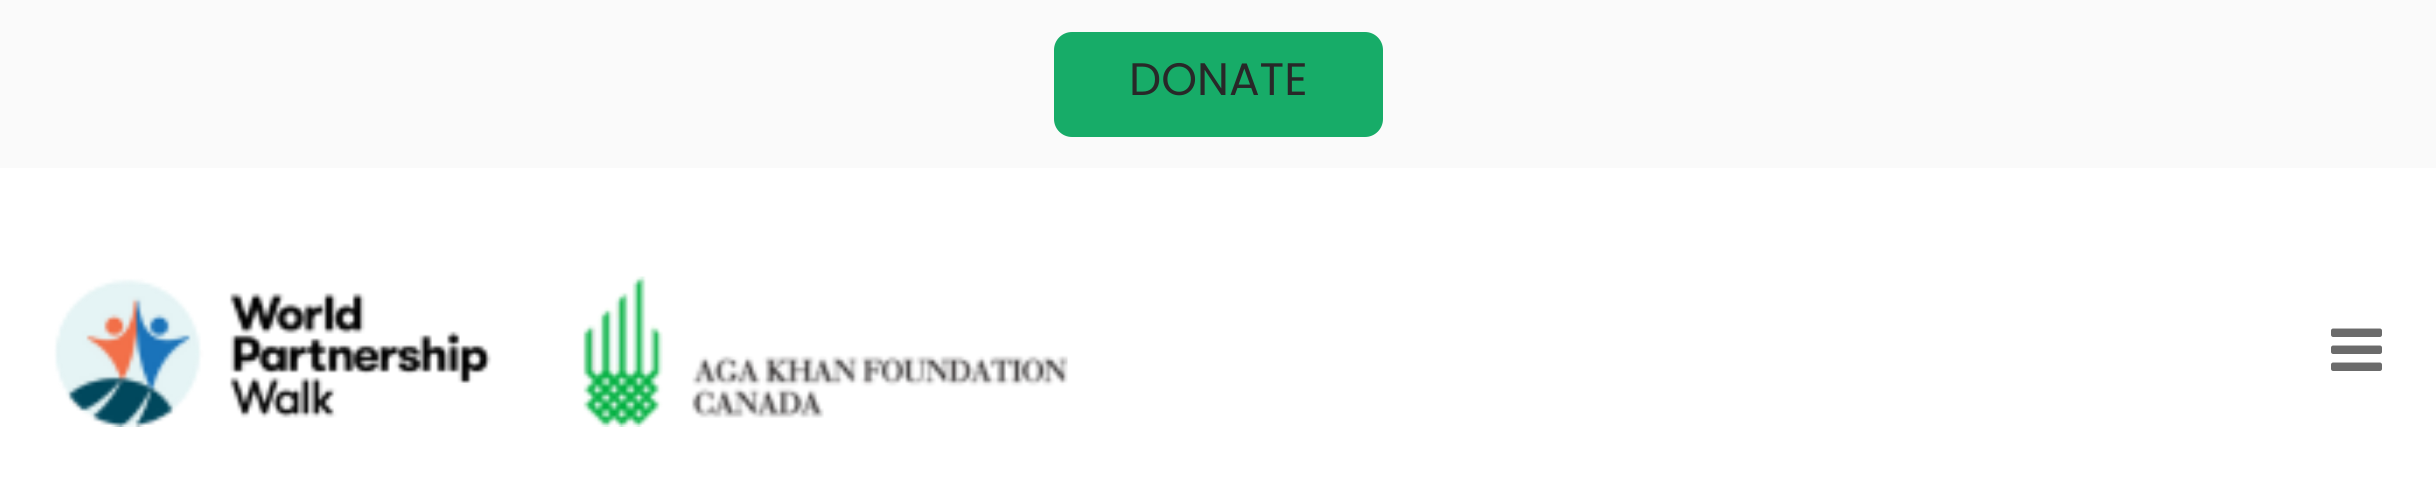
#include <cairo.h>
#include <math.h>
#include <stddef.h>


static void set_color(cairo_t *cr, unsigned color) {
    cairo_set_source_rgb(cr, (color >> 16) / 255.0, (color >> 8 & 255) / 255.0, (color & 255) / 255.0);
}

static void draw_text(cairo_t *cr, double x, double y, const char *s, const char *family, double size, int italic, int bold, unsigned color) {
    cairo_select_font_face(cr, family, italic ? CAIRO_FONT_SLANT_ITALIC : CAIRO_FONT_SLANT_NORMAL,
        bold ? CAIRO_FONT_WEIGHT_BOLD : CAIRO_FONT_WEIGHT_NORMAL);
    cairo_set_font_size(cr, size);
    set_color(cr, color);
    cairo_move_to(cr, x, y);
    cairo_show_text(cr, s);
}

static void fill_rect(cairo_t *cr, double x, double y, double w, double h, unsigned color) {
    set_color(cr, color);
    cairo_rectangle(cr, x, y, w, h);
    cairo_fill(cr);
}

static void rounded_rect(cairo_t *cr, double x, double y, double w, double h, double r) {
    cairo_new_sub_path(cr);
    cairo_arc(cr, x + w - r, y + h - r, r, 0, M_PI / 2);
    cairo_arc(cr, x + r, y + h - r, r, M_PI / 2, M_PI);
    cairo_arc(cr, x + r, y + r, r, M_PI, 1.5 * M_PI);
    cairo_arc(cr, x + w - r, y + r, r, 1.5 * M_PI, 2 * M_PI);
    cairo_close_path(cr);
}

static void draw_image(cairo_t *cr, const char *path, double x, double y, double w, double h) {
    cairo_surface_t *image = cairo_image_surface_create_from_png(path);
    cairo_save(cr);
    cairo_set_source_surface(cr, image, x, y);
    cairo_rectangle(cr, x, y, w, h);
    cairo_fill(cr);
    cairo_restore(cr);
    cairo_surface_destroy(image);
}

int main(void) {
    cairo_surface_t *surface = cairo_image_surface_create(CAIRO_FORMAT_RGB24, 2436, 477);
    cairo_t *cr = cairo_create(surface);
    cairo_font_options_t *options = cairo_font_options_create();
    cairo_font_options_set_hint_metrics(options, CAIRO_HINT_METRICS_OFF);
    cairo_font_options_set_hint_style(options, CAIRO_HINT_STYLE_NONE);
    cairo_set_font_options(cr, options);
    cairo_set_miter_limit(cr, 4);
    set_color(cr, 0xFFFFFF);
    cairo_paint(cr);
    fill_rect(cr, 0, 0, 2436, 168, 0xFAFAFA);
    set_color(cr, 0x17AC68);
    rounded_rect(cr, 1054, 32, 329, 105, 18);
    cairo_fill(cr);
    draw_text(cr, 1129, 95, "DONATE", "Poppins", 45.5, 0, 0, 0x282828);
    draw_image(cr, "assets/img1.png", 54, 276, 1014, 151);
    draw_image(cr, "assets/img2.png", 2331, 328, 51, 43);
    cairo_surface_write_to_png(surface, "output.png");
    cairo_font_options_destroy(options);
    cairo_destroy(cr);
    cairo_surface_destroy(surface);
    return 0;
}
